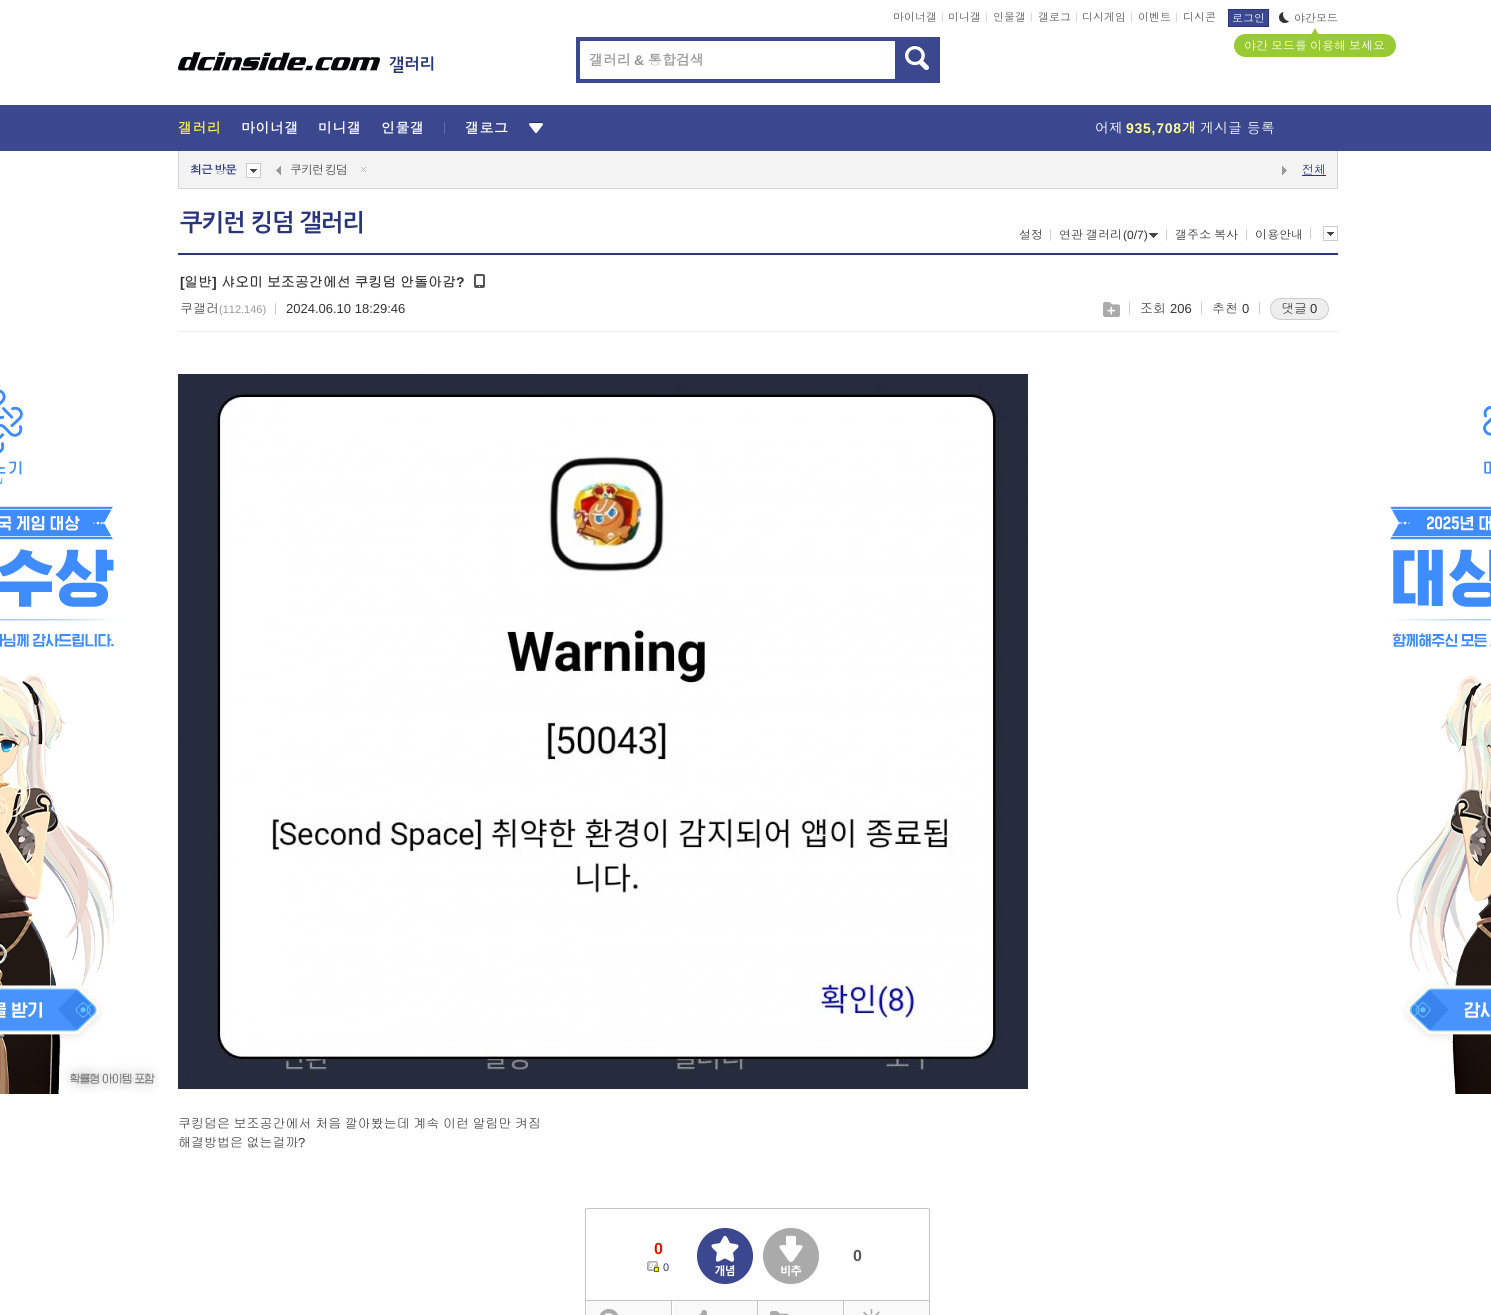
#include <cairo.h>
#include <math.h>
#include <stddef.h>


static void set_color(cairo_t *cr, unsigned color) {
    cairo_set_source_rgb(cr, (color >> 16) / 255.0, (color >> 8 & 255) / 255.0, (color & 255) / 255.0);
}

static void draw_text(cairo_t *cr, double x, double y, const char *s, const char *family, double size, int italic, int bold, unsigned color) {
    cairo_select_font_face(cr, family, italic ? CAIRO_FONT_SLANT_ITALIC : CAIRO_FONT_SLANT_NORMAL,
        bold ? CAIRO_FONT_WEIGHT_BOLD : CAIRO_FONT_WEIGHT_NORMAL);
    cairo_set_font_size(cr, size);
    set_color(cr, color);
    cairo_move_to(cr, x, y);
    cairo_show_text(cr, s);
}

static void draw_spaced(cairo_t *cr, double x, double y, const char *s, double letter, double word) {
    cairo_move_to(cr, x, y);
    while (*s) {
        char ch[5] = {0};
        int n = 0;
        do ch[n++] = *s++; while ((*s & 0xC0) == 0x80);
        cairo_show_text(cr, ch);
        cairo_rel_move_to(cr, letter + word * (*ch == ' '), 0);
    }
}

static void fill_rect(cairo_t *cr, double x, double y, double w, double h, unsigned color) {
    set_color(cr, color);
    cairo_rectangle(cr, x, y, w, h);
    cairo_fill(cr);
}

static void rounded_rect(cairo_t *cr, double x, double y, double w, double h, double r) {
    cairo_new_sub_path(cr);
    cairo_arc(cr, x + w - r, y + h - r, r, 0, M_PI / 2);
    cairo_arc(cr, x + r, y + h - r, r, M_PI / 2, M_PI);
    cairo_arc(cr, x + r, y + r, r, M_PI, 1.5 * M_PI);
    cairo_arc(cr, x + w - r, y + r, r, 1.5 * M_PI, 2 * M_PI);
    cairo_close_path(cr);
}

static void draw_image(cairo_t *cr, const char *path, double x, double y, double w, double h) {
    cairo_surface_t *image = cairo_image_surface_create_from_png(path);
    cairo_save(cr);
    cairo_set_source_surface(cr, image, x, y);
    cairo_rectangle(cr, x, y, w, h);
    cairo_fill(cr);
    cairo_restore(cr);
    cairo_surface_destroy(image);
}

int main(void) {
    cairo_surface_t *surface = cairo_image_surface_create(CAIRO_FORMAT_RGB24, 1491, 1315);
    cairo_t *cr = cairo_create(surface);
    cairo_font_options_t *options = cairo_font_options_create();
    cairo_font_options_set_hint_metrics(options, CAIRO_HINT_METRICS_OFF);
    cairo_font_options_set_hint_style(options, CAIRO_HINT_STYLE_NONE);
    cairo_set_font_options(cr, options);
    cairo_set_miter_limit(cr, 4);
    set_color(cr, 0xFFFFFF);
    cairo_paint(cr);
    draw_text(cr, 893, 21, "마이너갤", "Dotum", 11, 0, 0, 0x555555);
    draw_text(cr, 941, 20, "|", "Liberation Sans", 10, 0, 0, 0xCCCCCC);
    draw_text(cr, 948, 21, "미니갤", "Dotum", 11, 0, 0, 0x555555);
    draw_text(cr, 985, 20, "|", "Liberation Sans", 10, 0, 0, 0xCCCCCC);
    draw_text(cr, 993, 21, "인물갤", "Dotum", 11, 0, 0, 0x555555);
    draw_text(cr, 1030, 20, "|", "Liberation Sans", 10, 0, 0, 0xCCCCCC);
    draw_text(cr, 1038, 21, "갤로그", "Dotum", 11, 0, 0, 0x555555);
    draw_text(cr, 1075, 20, "|", "Liberation Sans", 10, 0, 0, 0xCCCCCC);
    draw_text(cr, 1082, 21, "디시게임", "Dotum", 11, 0, 0, 0x555555);
    draw_text(cr, 1130, 20, "|", "Liberation Sans", 10, 0, 0, 0xCCCCCC);
    draw_text(cr, 1138, 21, "이벤트", "Dotum", 11, 0, 0, 0x555555);
    draw_text(cr, 1175, 20, "|", "Liberation Sans", 10, 0, 0, 0xCCCCCC);
    draw_text(cr, 1183, 21, "디시콘", "Dotum", 11, 0, 0, 0x555555);
    set_color(cr, 0x3B4890);
    cairo_rectangle(cr, 1228.5, 9.5, 40, 17);
    cairo_fill_preserve(cr);
    set_color(cr, 0x29367C);
    cairo_set_line_width(cr, 1);
    cairo_stroke(cr);
    draw_text(cr, 1232, 22, "로그인", "Dotum", 11, 0, 0, 0xFFFFFF);
    draw_image(cr, "assets/img1.png", 1279, 12, 10, 11);
    draw_text(cr, 1294, 22, "야간모드", "Dotum", 11, 0, 0, 0x555555);
    set_color(cr, 0x98CA33);
    rounded_rect(cr, 1234, 34, 162, 23, 11.5);
    cairo_fill(cr);
    cairo_new_path(cr);
    cairo_move_to(cr, 1320, 37);
    cairo_line_to(cr, 1310, 37);
    cairo_line_to(cr, 1315, 28);
    cairo_close_path(cr);
    cairo_fill(cr);
    cairo_set_font_size(cr, 12);
    set_color(cr, 0xFFFFFF);
    draw_spaced(cr, 1244, 50, "야간 모드를 이용해 보세요", 0, -1);
    draw_image(cr, "assets/img2.png", 178, 52, 202, 19);
    draw_image(cr, "assets/img3.png", 389, 56, 45, 17);
    fill_rect(cr, 576, 37, 364, 46, 0x3B4890);
    fill_rect(cr, 580, 41, 315, 38, 0xFFFFFF);
    draw_text(cr, 589, 65, "갤러리", "Dotum", 14, 0, 1, 0x999999);
    draw_text(cr, 634, 65, "&", "Liberation Sans", 14, 0, 1, 0x999999);
    draw_text(cr, 648, 65, "통합검색", "Dotum", 14, 0, 1, 0x999999);
    draw_image(cr, "assets/img4.png", 905, 45, 24, 25);
    fill_rect(cr, 0, 105, 1491, 46, 0x3B4890);
    set_color(cr, 0xFFED44);
    draw_spaced(cr, 178, 133, "갤러리", 0.5, 0);
    set_color(cr, 0xFFFFFF);
    draw_spaced(cr, 241, 133, "마이너갤", 0.5, 0);
    draw_spaced(cr, 318, 133, "미니갤", 0.5, 0);
    draw_spaced(cr, 381, 133, "인물갤", 0.5, 0);
    fill_rect(cr, 444, 122, 1, 12, 0x626DA6);
    set_color(cr, 0xFFFFFF);
    draw_spaced(cr, 465, 133, "갤로그", 0.5, 0);
    draw_image(cr, "assets/img5.png", 529, 122, 14, 11);
    draw_text(cr, 1095, 133, "어제", "Dotum", 14, 0, 0, 0xFFFFFF);
    cairo_select_font_face(cr, "Liberation Sans", CAIRO_FONT_SLANT_NORMAL, CAIRO_FONT_WEIGHT_BOLD);
    set_color(cr, 0xFFFF99);
    draw_spaced(cr, 1126, 133, "935,708", 0.75, 0);
    cairo_select_font_face(cr, "Dotum", CAIRO_FONT_SLANT_NORMAL, CAIRO_FONT_WEIGHT_BOLD);
    draw_spaced(cr, 1182, 133, "개", 0.75, 0);
    draw_text(cr, 1200, 133, "게시글 등록", "Dotum", 14, 0, 0, 0xFFFFFF);
    fill_rect(cr, 179, 151, 1158, 37, 0xF3F3F3);
    fill_rect(cr, 1337, 151, 1, 38, 0xD5D5D5);
    fill_rect(cr, 178, 188, 1160, 1, 0xD5D5D5);
    fill_rect(cr, 178, 151, 1, 38, 0xD5D5D5);
    cairo_select_font_face(cr, "Dotum", CAIRO_FONT_SLANT_NORMAL, CAIRO_FONT_WEIGHT_BOLD);
    cairo_set_font_size(cr, 12);
    set_color(cr, 0x29367C);
    draw_spaced(cr, 190, 174, "최근 방문", -1, -1);
    draw_image(cr, "assets/img6.png", 246, 163, 15, 15);
    draw_image(cr, "assets/img7.png", 276, 166, 5, 9);
    cairo_select_font_face(cr, "Dotum", CAIRO_FONT_SLANT_NORMAL, CAIRO_FONT_WEIGHT_NORMAL);
    set_color(cr, 0x444444);
    draw_spaced(cr, 290, 174, "쿠키런 킹덤", -1, -1);
    draw_image(cr, "assets/img8.png", 361, 167, 5, 5);
    draw_image(cr, "assets/img9.png", 1282, 166, 5, 9);
    draw_text(cr, 1302, 174, "전체", "Dotum", 12, 0, 0, 0x29367C);
    fill_rect(cr, 1302, 175, 24, 1, 0x29367C);
    draw_image(cr, "assets/img10.png", 0, 389, 159, 705);
    cairo_save(cr);
    cairo_rectangle(cr, 180, 211, 183, 24);
    cairo_clip(cr);
    cairo_select_font_face(cr, "NanumGothic", CAIRO_FONT_SLANT_NORMAL, CAIRO_FONT_WEIGHT_BOLD);
    cairo_set_font_size(cr, 24);
    draw_spaced(cr, 180, 231, "쿠키런 킹덤 갤러리", -1, 0);
    cairo_restore(cr);
    draw_text(cr, 1019, 239, "설정", "Dotum", 12, 0, 0, 0x333333);
    draw_text(cr, 1049, 238, "|", "Liberation Sans", 12, 0, 0, 0xCCCCCC);
    cairo_select_font_face(cr, "Dotum", CAIRO_FONT_SLANT_NORMAL, CAIRO_FONT_WEIGHT_NORMAL);
    set_color(cr, 0x333333);
    draw_spaced(cr, 1059, 239, "연관 갤러리", 0, -1);
    draw_text(cr, 1123, 239, "(0/7)", "Liberation Sans", 12, 0, 0, 0x333333);
    draw_image(cr, "assets/img11.png", 1149, 233, 9, 5);
    draw_text(cr, 1165, 238, "|", "Liberation Sans", 12, 0, 0, 0xCCCCCC);
    cairo_select_font_face(cr, "Dotum", CAIRO_FONT_SLANT_NORMAL, CAIRO_FONT_WEIGHT_NORMAL);
    set_color(cr, 0x333333);
    draw_spaced(cr, 1175, 239, "갤주소 복사", 0, -1);
    draw_text(cr, 1245, 238, "|", "Liberation Sans", 12, 0, 0, 0xCCCCCC);
    draw_text(cr, 1255, 239, "이용안내", "Dotum", 12, 0, 0, 0x333333);
    draw_text(cr, 1309, 236, "|", "Liberation Sans", 12, 0, 0, 0xCCCCCC);
    draw_image(cr, "assets/img6.png", 1323, 226, 15, 15);
    fill_rect(cr, 178, 253, 1160, 2, 0x29367C);
    fill_rect(cr, 178, 331, 1160, 1, 0xEEEEEE);
    draw_text(cr, 180, 287, "[", "Liberation Sans", 14, 0, 1, 0x333333);
    draw_text(cr, 184, 287, "일반", "Gulim", 14, 0, 1, 0x333333);
    draw_text(cr, 212, 287, "]", "Liberation Sans", 14, 0, 1, 0x333333);
    cairo_select_font_face(cr, "Gulim", CAIRO_FONT_SLANT_NORMAL, CAIRO_FONT_WEIGHT_BOLD);
    draw_spaced(cr, 221, 287, "샤오미 보조공간에선 쿠킹덤 안돌아감", 0, -1);
    draw_text(cr, 456, 287, "?", "Liberation Sans", 14, 0, 1, 0x333333);
    draw_image(cr, "assets/img12.png", 474, 274, 11, 14);
    draw_text(cr, 180, 313, "쿠갤러", "Gulim", 13, 0, 0, 0x333333);
    draw_text(cr, 219, 313, "(112.146)", "Liberation Sans", 11, 0, 0, 0x999999);
    fill_rect(cr, 275, 303, 1, 12, 0xCCCCCC);
    draw_text(cr, 286, 313, "2024.06.10 18:29:46", "Liberation Sans", 13, 0, 0, 0x333333);
    draw_image(cr, "assets/img13.png", 1103, 302, 17, 15);
    fill_rect(cr, 1129, 302, 1, 12, 0xCCCCCC);
    draw_text(cr, 1140, 313, "조회", "Gulim", 13, 0, 0, 0x333333);
    draw_text(cr, 1170, 313, "206", "Liberation Sans", 13, 0, 0, 0x333333);
    fill_rect(cr, 1201, 302, 1, 12, 0xCCCCCC);
    draw_text(cr, 1212, 313, "추천", "Gulim", 13, 0, 0, 0x333333);
    draw_text(cr, 1242, 313, "0", "Liberation Sans", 13, 0, 0, 0x333333);
    fill_rect(cr, 1259, 302, 1, 12, 0xCCCCCC);
    set_color(cr, 0xEEEEEE);
    rounded_rect(cr, 1270.5, 298.5, 58, 21, 10.5);
    cairo_fill_preserve(cr);
    set_color(cr, 0xCCCCCC);
    cairo_stroke(cr);
    draw_text(cr, 1281, 313, "댓글", "Gulim", 13, 0, 0, 0x333333);
    draw_text(cr, 1310, 313, "0", "Liberation Sans", 13, 0, 0, 0x333333);
    draw_image(cr, "assets/img14.png", 178, 374, 850, 715);
    cairo_select_font_face(cr, "Gulim", CAIRO_FONT_SLANT_NORMAL, CAIRO_FONT_WEIGHT_NORMAL);
    draw_spaced(cr, 178, 1128, "쿠킹덤은 보조공간에서 처음 깔아봤는데 계속 이런 알림만 켜짐", 0, -0.75);
    draw_spaced(cr, 178, 1147, "해결방법은 없는걸까", 0, -0.75);
    draw_text(cr, 298, 1147, "?", "Liberation Sans", 13, 0, 0, 0x333333);
    rounded_rect(cr, 585.5, 1208.5, 344, 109, 1.5);
    set_color(cr, 0xC4C4C4);
    cairo_stroke(cr);
    draw_text(cr, 654, 1254, "0", "Liberation Sans", 16, 0, 1, 0xD31900);
    draw_image(cr, "assets/img15.png", 647, 1261, 12, 11);
    draw_text(cr, 663, 1271, "0", "Liberation Sans", 11, 0, 0, 0x29367C);
    draw_image(cr, "assets/img16.png", 697, 1228, 56, 56);
    draw_image(cr, "assets/img17.png", 763, 1228, 56, 56);
    draw_text(cr, 853, 1261, "0", "Liberation Sans", 16, 0, 1, 0x555555);
    fill_rect(cr, 586, 1300, 343, 1, 0xC4C4C4);
    fill_rect(cr, 587, 1301, 84, 14, 0xF9F9F9);
    fill_rect(cr, 671, 1301, 1, 14, 0xC4C4C4);
    draw_image(cr, "assets/img18.png", 600, 1309, 18, 6);
    fill_rect(cr, 673, 1301, 84, 14, 0xF9F9F9);
    fill_rect(cr, 757, 1301, 1, 14, 0xC4C4C4);
    draw_image(cr, "assets/img19.png", 699, 1310, 9, 5);
    fill_rect(cr, 758, 1301, 85, 14, 0xF9F9F9);
    fill_rect(cr, 843, 1301, 1, 14, 0xC4C4C4);
    draw_image(cr, "assets/img20.png", 770, 1311, 19, 4);
    fill_rect(cr, 845, 1301, 84, 14, 0xF9F9F9);
    draw_image(cr, "assets/img21.png", 863, 1309, 17, 6);
    draw_image(cr, "assets/img22.png", 1385, 406, 106, 688);
    cairo_surface_write_to_png(surface, "output.png");
    cairo_font_options_destroy(options);
    cairo_destroy(cr);
    cairo_surface_destroy(surface);
    return 0;
}
